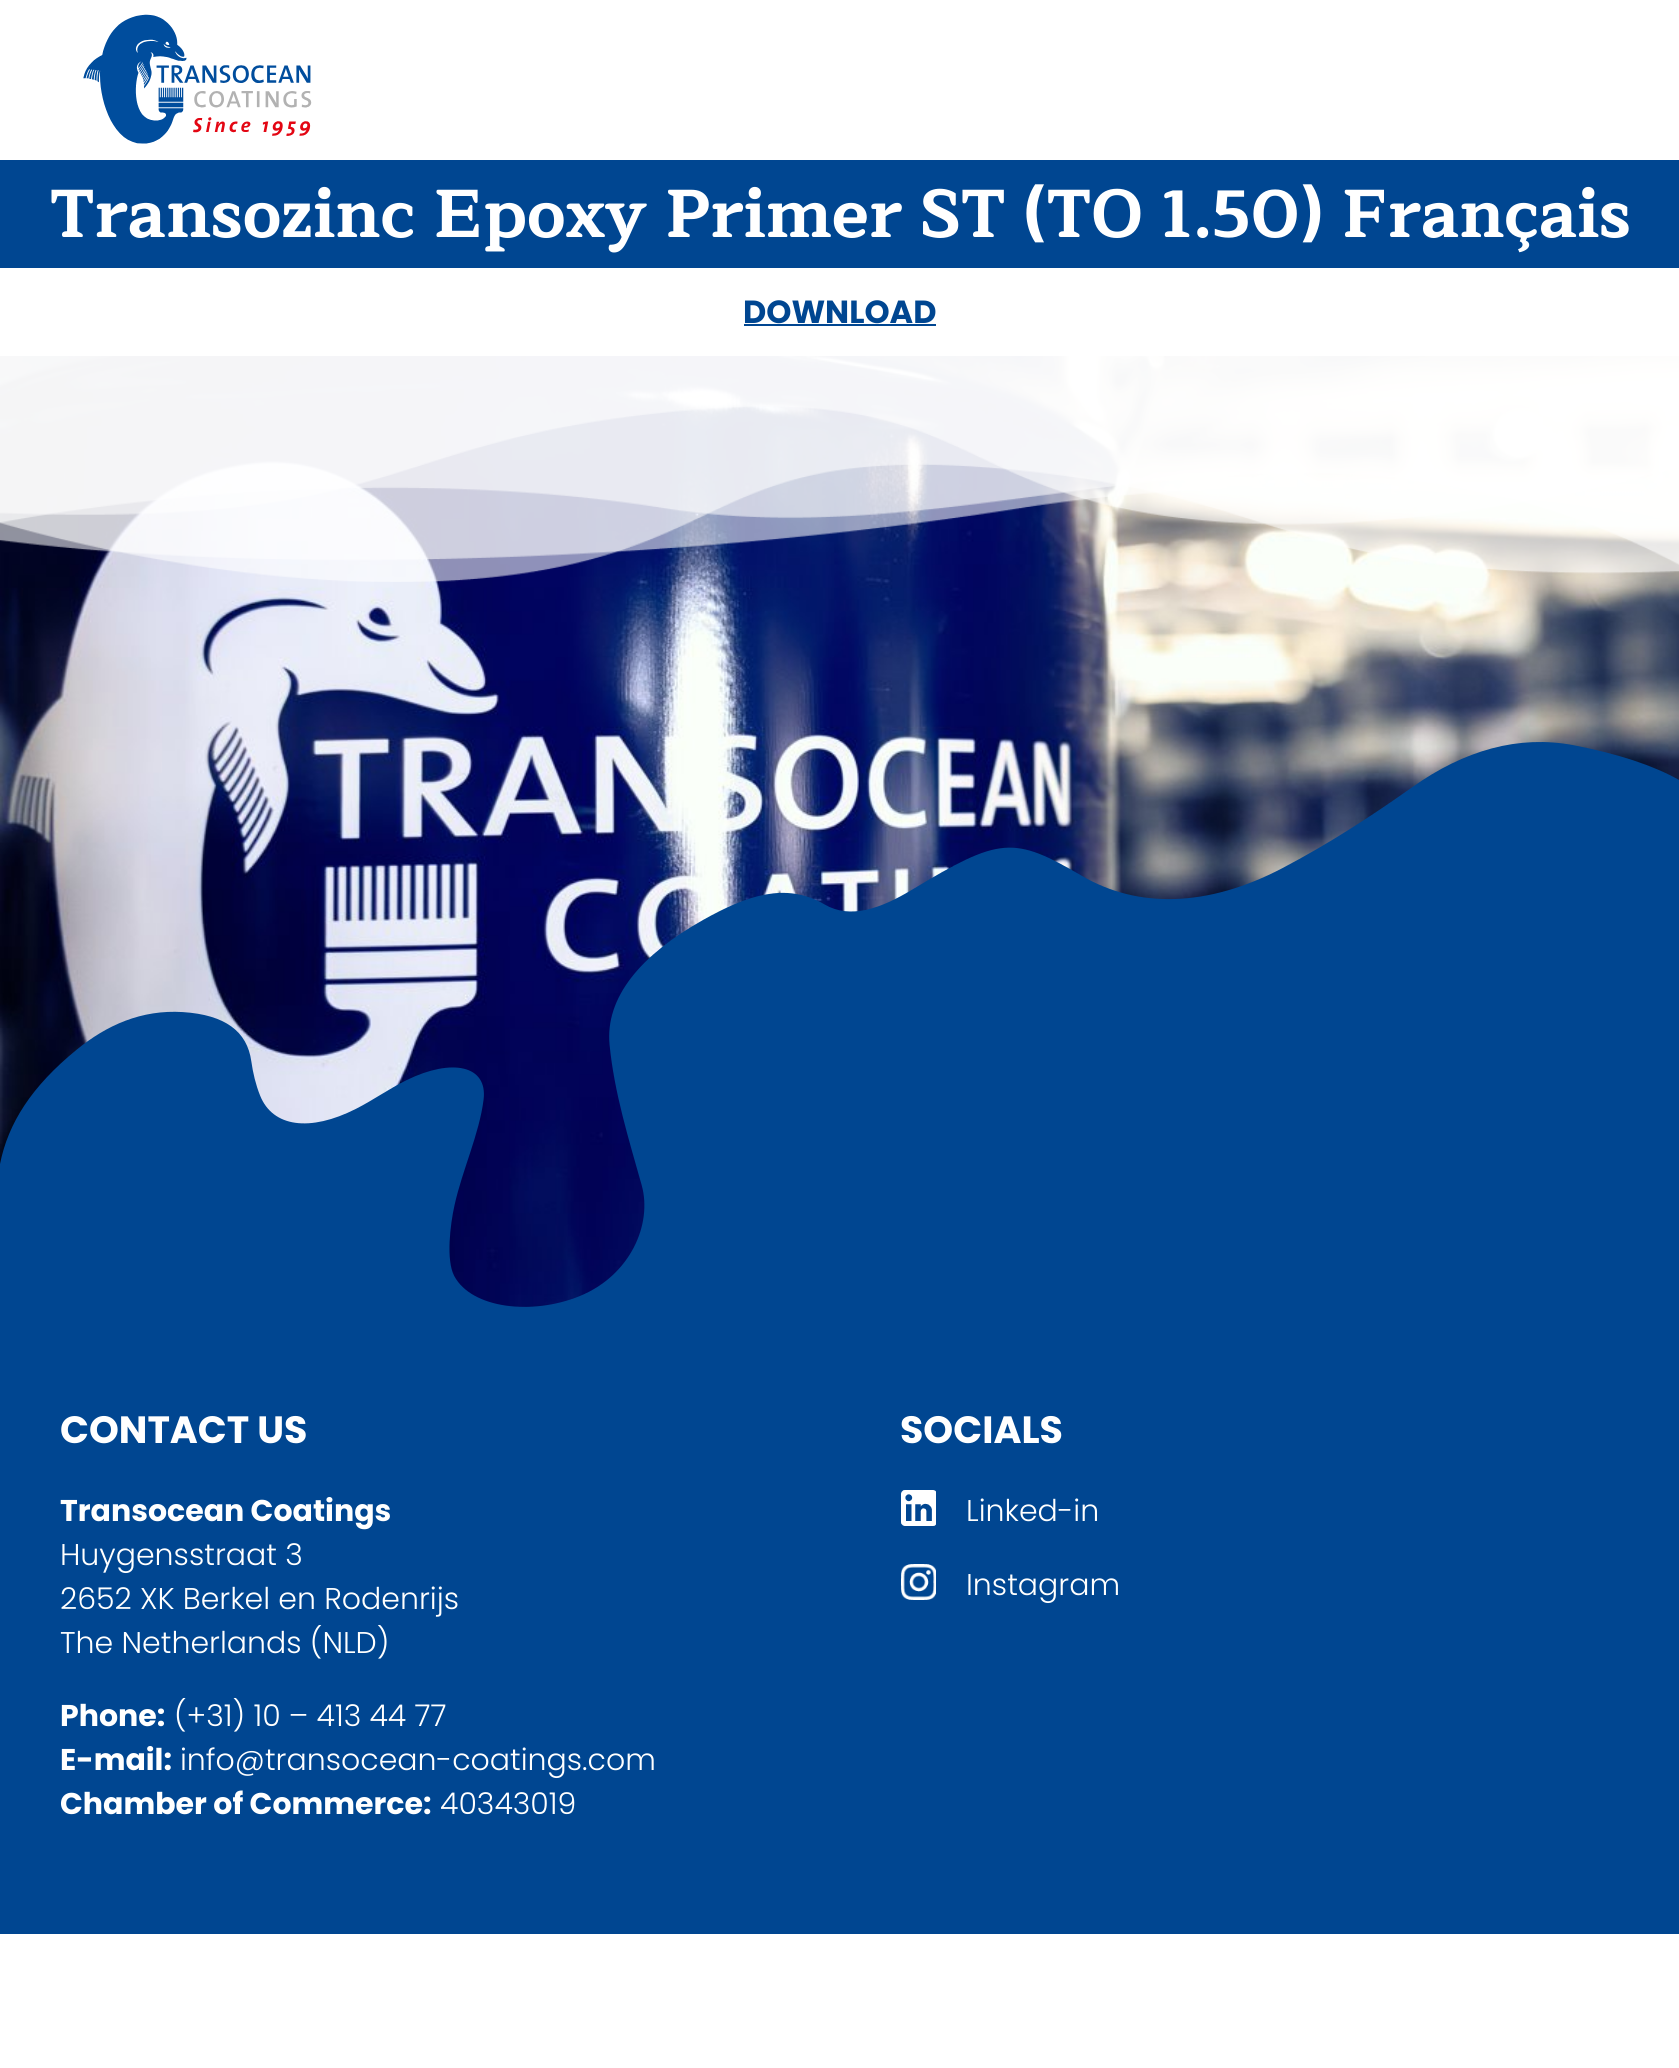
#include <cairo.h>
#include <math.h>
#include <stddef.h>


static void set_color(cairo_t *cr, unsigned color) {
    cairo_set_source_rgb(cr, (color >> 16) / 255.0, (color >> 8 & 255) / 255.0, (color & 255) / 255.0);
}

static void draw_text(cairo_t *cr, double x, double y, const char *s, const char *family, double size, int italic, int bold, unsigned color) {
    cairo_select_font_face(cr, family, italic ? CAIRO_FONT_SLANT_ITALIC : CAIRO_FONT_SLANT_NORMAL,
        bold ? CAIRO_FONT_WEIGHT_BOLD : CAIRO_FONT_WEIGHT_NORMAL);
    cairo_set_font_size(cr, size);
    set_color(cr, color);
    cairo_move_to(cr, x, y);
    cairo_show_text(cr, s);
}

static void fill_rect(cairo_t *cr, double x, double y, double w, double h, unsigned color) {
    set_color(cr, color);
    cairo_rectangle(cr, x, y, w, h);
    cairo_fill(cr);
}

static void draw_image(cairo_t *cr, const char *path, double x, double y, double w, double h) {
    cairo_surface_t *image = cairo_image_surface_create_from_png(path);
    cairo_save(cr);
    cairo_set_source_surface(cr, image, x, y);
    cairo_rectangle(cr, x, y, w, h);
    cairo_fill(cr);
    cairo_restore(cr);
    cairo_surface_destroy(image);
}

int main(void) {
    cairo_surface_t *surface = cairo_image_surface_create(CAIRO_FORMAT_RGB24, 1679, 2068);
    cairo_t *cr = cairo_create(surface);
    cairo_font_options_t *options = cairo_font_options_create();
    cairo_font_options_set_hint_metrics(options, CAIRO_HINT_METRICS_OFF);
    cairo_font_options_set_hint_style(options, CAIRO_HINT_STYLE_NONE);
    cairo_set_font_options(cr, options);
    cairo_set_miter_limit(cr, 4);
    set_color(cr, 0xFFFFFF);
    cairo_paint(cr);
    draw_image(cr, "assets/img1.png", 83, 14, 229, 130);
    fill_rect(cr, 0, 160, 1679, 108, 0x004691);
    draw_text(cr, 50, 237, "Transozinc Epoxy Primer ST (TO 1.50) Français", "Maitree", 68, 0, 1, 0xFFFFFF);
    draw_text(cr, 743, 323, "DOWNLOAD", "Poppins", 32, 0, 1, 0x004691);
    fill_rect(cr, 744, 324, 192, 2, 0x004691);
    draw_image(cr, "assets/img2.png", 0, 356, 1679, 951);
    draw_image(cr, "assets/img3.png", 0, 356, 1679, 226);
    draw_image(cr, "assets/img4.png", 0, 742, 1679, 648);
    fill_rect(cr, 0, 1390, 1679, 544, 0x004691);
    draw_text(cr, 60, 1443, "CONTACT US", "Poppins", 38, 0, 1, 0xFFFFFF);
    draw_text(cr, 60, 1521, "Transocean Coatings", "Poppins", 30, 0, 1, 0xFFFFFF);
    draw_text(cr, 60, 1565, "Huygensstraat 3", "Poppins Light", 30, 0, 0, 0xFFFFFF);
    draw_text(cr, 60, 1609, "2652 XK Berkel en Rodenrijs", "Poppins Light", 30, 0, 0, 0xFFFFFF);
    draw_text(cr, 60, 1653, "The Netherlands (NLD)", "Poppins Light", 30, 0, 0, 0xFFFFFF);
    draw_text(cr, 60, 1726, "Phone:", "Poppins", 30, 0, 1, 0xFFFFFF);
    draw_text(cr, 174, 1726, "(+31) 10 – 413 44 77", "Poppins Light", 30, 0, 0, 0xFFFFFF);
    draw_text(cr, 60, 1770, "E-mail:", "Poppins", 30, 0, 1, 0xFFFFFF);
    draw_text(cr, 180, 1770, "info@transocean-coatings.com", "Poppins Light", 30, 0, 0, 0xFFFFFF);
    draw_text(cr, 60, 1814, "Chamber of Commerce:", "Poppins", 30, 0, 1, 0xFFFFFF);
    draw_text(cr, 440, 1814, "40343019", "Poppins Light", 30, 0, 0, 0xFFFFFF);
    draw_text(cr, 900, 1443, "SOCIALS", "Poppins", 38, 0, 1, 0xFFFFFF);
    draw_image(cr, "assets/img5.png", 901, 1490, 35, 36);
    draw_text(cr, 966, 1521, "Linked-in", "Poppins Light", 30, 0, 0, 0xFFFFFF);
    draw_image(cr, "assets/img6.png", 901, 1564, 35, 36);
    draw_text(cr, 966, 1595, "Instagram", "Poppins Light", 30, 0, 0, 0xFFFFFF);
    cairo_surface_write_to_png(surface, "output.png");
    cairo_font_options_destroy(options);
    cairo_destroy(cr);
    cairo_surface_destroy(surface);
    return 0;
}
